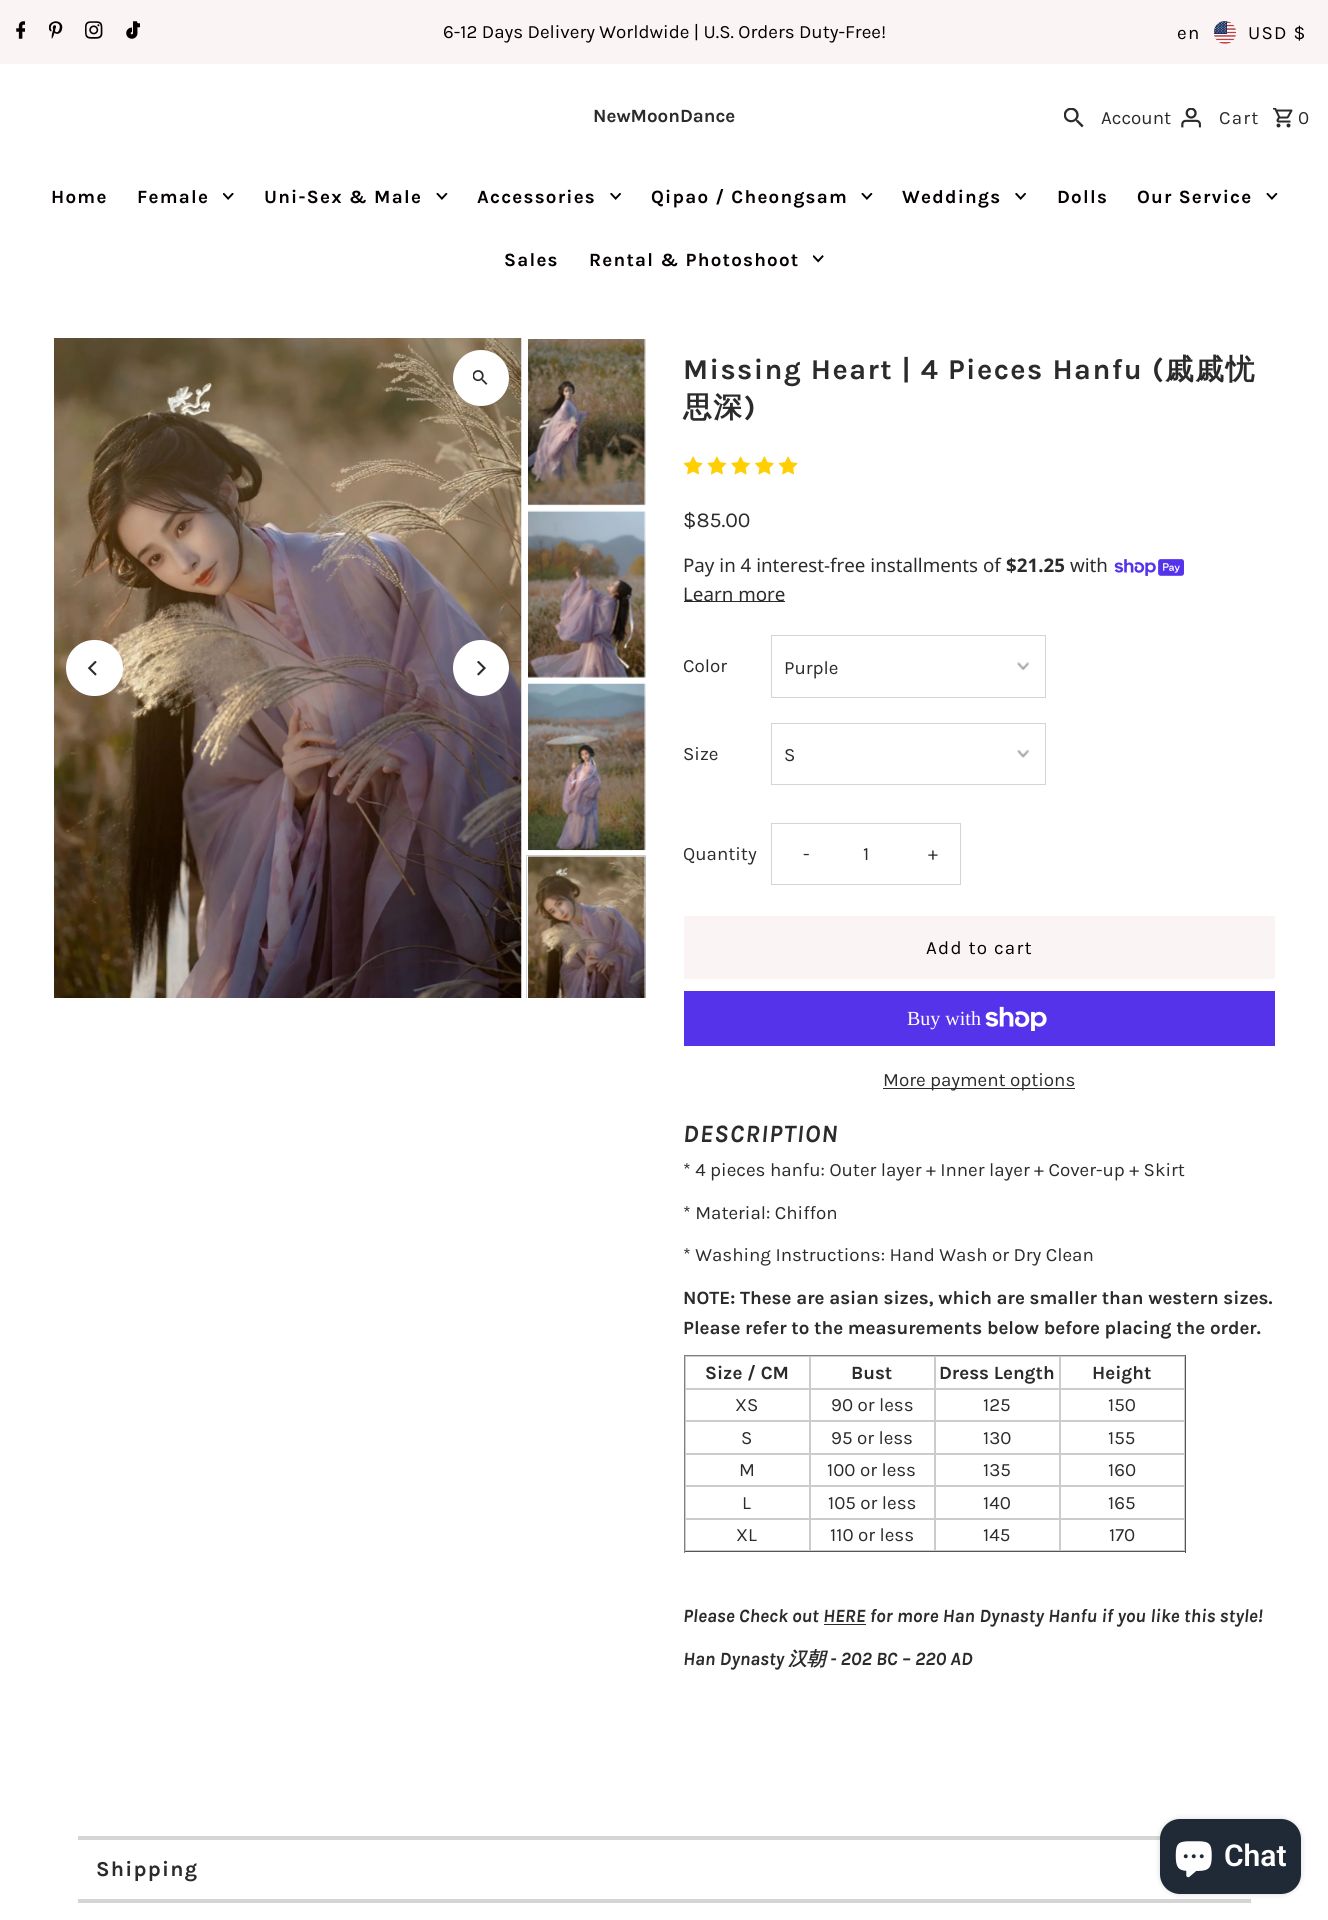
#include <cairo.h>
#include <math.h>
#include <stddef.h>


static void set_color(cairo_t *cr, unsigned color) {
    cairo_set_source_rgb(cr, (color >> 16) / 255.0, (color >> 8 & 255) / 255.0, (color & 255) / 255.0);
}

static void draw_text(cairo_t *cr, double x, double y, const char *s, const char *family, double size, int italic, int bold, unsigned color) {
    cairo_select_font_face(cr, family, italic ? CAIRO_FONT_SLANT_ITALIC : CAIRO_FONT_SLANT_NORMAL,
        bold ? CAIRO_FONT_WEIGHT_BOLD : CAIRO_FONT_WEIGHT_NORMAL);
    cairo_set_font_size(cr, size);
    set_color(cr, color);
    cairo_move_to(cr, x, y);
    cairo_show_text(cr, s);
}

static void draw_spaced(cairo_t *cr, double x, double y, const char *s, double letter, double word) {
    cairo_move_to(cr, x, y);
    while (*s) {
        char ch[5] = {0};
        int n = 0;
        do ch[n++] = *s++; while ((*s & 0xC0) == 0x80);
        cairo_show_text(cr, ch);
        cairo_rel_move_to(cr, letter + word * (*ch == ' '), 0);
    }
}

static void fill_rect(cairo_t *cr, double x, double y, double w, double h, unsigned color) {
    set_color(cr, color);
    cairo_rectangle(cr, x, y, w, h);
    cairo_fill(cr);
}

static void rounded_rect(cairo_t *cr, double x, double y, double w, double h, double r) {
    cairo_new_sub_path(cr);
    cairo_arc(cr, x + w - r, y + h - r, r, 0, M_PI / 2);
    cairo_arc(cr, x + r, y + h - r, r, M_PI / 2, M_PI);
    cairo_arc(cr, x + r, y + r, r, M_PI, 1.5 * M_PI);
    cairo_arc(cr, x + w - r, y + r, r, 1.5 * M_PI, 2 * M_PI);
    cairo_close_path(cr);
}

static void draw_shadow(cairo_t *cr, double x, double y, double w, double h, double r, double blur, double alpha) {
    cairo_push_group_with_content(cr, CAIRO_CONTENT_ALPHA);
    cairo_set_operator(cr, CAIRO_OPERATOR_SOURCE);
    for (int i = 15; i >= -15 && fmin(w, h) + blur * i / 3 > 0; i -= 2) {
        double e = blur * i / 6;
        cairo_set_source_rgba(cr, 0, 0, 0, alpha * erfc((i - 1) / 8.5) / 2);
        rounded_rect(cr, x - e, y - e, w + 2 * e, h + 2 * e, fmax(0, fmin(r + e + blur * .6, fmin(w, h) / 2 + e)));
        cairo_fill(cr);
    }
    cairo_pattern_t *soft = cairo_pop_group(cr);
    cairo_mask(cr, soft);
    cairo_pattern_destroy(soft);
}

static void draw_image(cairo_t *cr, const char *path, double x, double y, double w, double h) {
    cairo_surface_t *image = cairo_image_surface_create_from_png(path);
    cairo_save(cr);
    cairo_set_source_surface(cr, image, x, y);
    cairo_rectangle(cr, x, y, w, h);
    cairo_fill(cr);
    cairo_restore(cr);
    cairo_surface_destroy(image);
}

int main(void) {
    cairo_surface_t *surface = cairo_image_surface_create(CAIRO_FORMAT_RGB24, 1328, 1920);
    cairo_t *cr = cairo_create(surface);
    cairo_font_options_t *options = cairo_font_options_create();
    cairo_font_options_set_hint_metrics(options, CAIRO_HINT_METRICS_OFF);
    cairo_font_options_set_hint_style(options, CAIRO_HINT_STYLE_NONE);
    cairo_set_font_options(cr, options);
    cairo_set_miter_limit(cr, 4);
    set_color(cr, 0xFFFFFF);
    cairo_paint(cr);
    fill_rect(cr, 0, 0, 1328, 64, 0xFAF4F4);
    draw_image(cr, "assets/img1.png", 16, 21, 9, 18);
    draw_image(cr, "assets/img2.png", 49, 21, 14, 18);
    draw_image(cr, "assets/img3.png", 85, 21, 18, 18);
    draw_image(cr, "assets/img4.png", 126, 21, 14, 18);
    draw_text(cr, 443, 38, "6-12 Days Delivery Worldwide | U.S. Orders Duty-Free!", "Karla", 18.75, 0, 0, 0x050000);
    draw_spaced(cr, 1177, 39, "en", 1.25, 0);
    draw_image(cr, "assets/img5.png", 1214, 21, 22, 23);
    draw_spaced(cr, 1248, 39, "USD $", 1.25, 0);
    draw_text(cr, 593, 122, "NewMoonDance", "Karla", 18.75, 0, 1, 0x2B2B2B);
    draw_image(cr, "assets/img6.png", 1064, 108, 20, 20);
    draw_text(cr, 1101, 124, "Account", "Karla", 18.75, 0, 0, 0x2B2B2B);
    draw_image(cr, "assets/img7.png", 1181, 108, 20, 20);
    draw_spaced(cr, 1219, 124, "Cart", 1.25, 0);
    draw_image(cr, "assets/img8.png", 1273, 108, 20, 20);
    draw_spaced(cr, 1298, 124, "0", 1.25, 0);
    cairo_select_font_face(cr, "Karla", CAIRO_FONT_SLANT_NORMAL, CAIRO_FONT_WEIGHT_BOLD);
    set_color(cr, 0x050000);
    draw_spaced(cr, 51, 203, "Home", 1.25, 0);
    draw_spaced(cr, 137, 203, "Female", 1.25, 0);
    draw_image(cr, "assets/img9.png", 223, 193, 11, 7);
    draw_spaced(cr, 264, 203, "Uni-Sex & Male", 1.25, 0);
    draw_image(cr, "assets/img10.png", 436, 193, 12, 7);
    draw_spaced(cr, 477, 203, "Accessories", 1.25, 0);
    draw_image(cr, "assets/img11.png", 610, 193, 11, 7);
    draw_spaced(cr, 651, 203, "Qipao / Cheongsam", 1.25, 0);
    draw_image(cr, "assets/img10.png", 861, 193, 12, 7);
    draw_spaced(cr, 902, 203, "Weddings", 1.25, 0);
    draw_image(cr, "assets/img11.png", 1015, 193, 11, 7);
    draw_spaced(cr, 1057, 203, "Dolls", 1.25, 0);
    draw_spaced(cr, 1137, 203, "Our Service", 1.25, 0);
    draw_image(cr, "assets/img10.png", 1266, 193, 12, 7);
    draw_spaced(cr, 504, 266, "Sales", 1.25, 0);
    draw_spaced(cr, 589, 266, "Rental & Photoshoot", 1.25, 0);
    draw_image(cr, "assets/img12.png", 813, 255, 11, 8);
    draw_image(cr, "assets/img13.png", 54, 338, 468, 660);
    set_color(cr, 0xFFFFFF);
    cairo_arc(cr, 481, 378, 28, 0, 2 * M_PI);
    cairo_fill(cr);
    draw_image(cr, "assets/img14.png", 473, 370, 15, 15);
    rounded_rect(cr, 66, 640, 57, 56, 28);
    cairo_fill(cr);
    draw_image(cr, "assets/img15.png", 87, 661, 10, 15);
    cairo_arc(cr, 481, 668, 28, 0, 2 * M_PI);
    cairo_fill(cr);
    draw_image(cr, "assets/img16.png", 477, 661, 9, 15);
    draw_image(cr, "assets/img17.png", 528, 339, 118, 167);
    draw_image(cr, "assets/img18.png", 528, 510, 118, 168);
    draw_image(cr, "assets/img19.png", 528, 683, 118, 168);
    cairo_save(cr);
    cairo_rectangle(cr, 521, 338, 125, 660);
    cairo_clip(cr);
    cairo_rectangle(cr, 526.5, 855.5, 119, 168);
    set_color(cr, 0xD5D5D5);
    cairo_set_line_width(cr, 1);
    cairo_stroke(cr);
    cairo_restore(cr);
    draw_image(cr, "assets/img20.png", 528, 855, 118, 143);
    cairo_set_font_size(cr, 28.75);
    set_color(cr, 0x2B2B2B);
    draw_spaced(cr, 683, 379, "Missing Heart | 4 Pieces Hanfu (", 1.45, 0);
    cairo_select_font_face(cr, "WenQuanYi Zen Hei", CAIRO_FONT_SLANT_NORMAL, CAIRO_FONT_WEIGHT_BOLD);
    draw_spaced(cr, 1165, 379, "戚戚忧", 1.45, 0);
    draw_spaced(cr, 683, 417, "思深", 1.45, 0);
    cairo_select_font_face(cr, "Karla", CAIRO_FONT_SLANT_NORMAL, CAIRO_FONT_WEIGHT_BOLD);
    draw_spaced(cr, 744, 417, ")", 1.45, 0);
    draw_image(cr, "assets/img21.png", 683, 456, 20, 19);
    draw_image(cr, "assets/img22.png", 707, 456, 20, 19);
    draw_image(cr, "assets/img23.png", 731, 456, 19, 19);
    draw_image(cr, "assets/img24.png", 755, 456, 19, 19);
    draw_image(cr, "assets/img21.png", 778, 456, 20, 19);
    draw_text(cr, 683, 527, "$85.00", "Karla", 21.25, 0, 0, 0x2B2B2B);
    draw_text(cr, 683, 572, "Pay in 4 interest-free installments of", "Noto Sans", 18.75, 0, 0, 0x2B2B2B);
    draw_text(cr, 1006, 572, "$21.25", "Noto Sans", 18.75, 0, 1, 0x2B2B2B);
    draw_text(cr, 1070, 572, "with", "Noto Sans", 18.75, 0, 0, 0x2B2B2B);
    draw_image(cr, "assets/img25.png", 1114, 559, 70, 17);
    fill_rect(cr, 684, 601, 101, 1, 0x2B2B2B);
    draw_text(cr, 683, 601, "Learn more", "Noto Sans", 18.75, 0, 0, 0x2B2B2B);
    draw_text(cr, 683, 672, "Color", "Karla", 18.75, 0, 0, 0x2B2B2B);
    draw_image(cr, "assets/img26.png", 1017, 662, 12, 9);
    cairo_rectangle(cr, 771.5, 635.5, 274, 62);
    set_color(cr, 0xD5D5D5);
    cairo_set_line_width(cr, 1);
    cairo_stroke(cr);
    draw_text(cr, 784, 674, "Purple", "Karla", 18.75, 0, 0, 0x2B2B2B);
    draw_text(cr, 683, 760, "Size", "Karla", 18.75, 0, 0, 0x2B2B2B);
    draw_image(cr, "assets/img27.png", 1017, 750, 12, 8);
    cairo_rectangle(cr, 771.5, 723.5, 274, 61);
    set_color(cr, 0xD5D5D5);
    cairo_stroke(cr);
    draw_text(cr, 784, 761, "S", "Karla", 18.75, 0, 0, 0x2B2B2B);
    draw_text(cr, 683, 860, "Quantity", "Karla", 18.75, 0, 0, 0x2B2B2B);
    cairo_rectangle(cr, 771.5, 823.5, 189, 61);
    set_color(cr, 0xD5D5D5);
    cairo_stroke(cr);
    set_color(cr, 0x2B2B2B);
    draw_spaced(cr, 803, 860, "-", 1.25, 0);
    draw_text(cr, 863, 860, "1", "Karla", 18.75, 0, 0, 0x2B2B2B);
    draw_spaced(cr, 928, 860, "+", 1.25, 0);
    fill_rect(cr, 684, 916, 591, 63, 0xFAF4F4);
    set_color(cr, 0x050000);
    draw_spaced(cr, 926, 954, "Add to cart", 1.25, 0);
    fill_rect(cr, 684, 991, 591, 55, 0x5433EB);
    draw_text(cr, 907, 1025, "Buy with", "Liberation Serif", 20, 0, 0, 0xFFFFFF);
    draw_image(cr, "assets/img28.png", 985, 1006, 62, 25);
    fill_rect(cr, 883, 1088, 192, 1, 0x2B2B2B);
    draw_text(cr, 883, 1086, "More payment options", "Karla", 18.75, 0, 0, 0x2B2B2B);
    cairo_select_font_face(cr, "Karla", CAIRO_FONT_SLANT_ITALIC, CAIRO_FONT_WEIGHT_BOLD);
    cairo_set_font_size(cr, 25);
    draw_spaced(cr, 683, 1142, "DESCRIPTION", 1.25, 0);
    draw_text(cr, 683, 1176, "* 4 pieces hanfu: Outer layer + Inner layer + Cover-up + Skirt", "Karla", 18.75, 0, 0, 0x2B2B2B);
    draw_text(cr, 683, 1219, "* Material: Chiffon", "Karla", 18.75, 0, 0, 0x2B2B2B);
    draw_text(cr, 683, 1261, "* Washing Instructions: Hand Wash or Dry Clean", "Karla", 18.75, 0, 0, 0x2B2B2B);
    draw_text(cr, 683, 1304, "NOTE: These are asian sizes, which are smaller than western sizes.", "Karla", 18.75, 0, 1, 0x2B2B2B);
    draw_text(cr, 683, 1334, "Please refer to the measurements below before placing the order.", "Karla", 18.75, 0, 1, 0x2B2B2B);
    fill_rect(cr, 684, 1355, 502, 1, 0x808080);
    fill_rect(cr, 1185, 1355, 1, 198, 0x555555);
    fill_rect(cr, 684, 1551, 502, 1, 0x555555);
    fill_rect(cr, 684, 1355, 1, 198, 0x808080);
    cairo_rectangle(cr, 685.5, 1356.5, 124, 32);
    set_color(cr, 0xCCCCCC);
    cairo_stroke(cr);
    draw_text(cr, 705, 1379, "Size / CM", "Karla", 18.75, 0, 1, 0x2B2B2B);
    cairo_rectangle(cr, 810.5, 1356.5, 124, 32);
    set_color(cr, 0xCCCCCC);
    cairo_stroke(cr);
    draw_text(cr, 851, 1379, "Bust", "Karla", 18.75, 0, 1, 0x2B2B2B);
    cairo_rectangle(cr, 935.5, 1356.5, 124, 32);
    set_color(cr, 0xCCCCCC);
    cairo_stroke(cr);
    draw_text(cr, 939, 1379, "Dress Length", "Karla", 18.75, 0, 1, 0x2B2B2B);
    cairo_rectangle(cr, 1060.5, 1356.5, 124, 32);
    set_color(cr, 0xCCCCCC);
    cairo_stroke(cr);
    draw_text(cr, 1092, 1379, "Height", "Karla", 18.75, 0, 1, 0x2B2B2B);
    cairo_rectangle(cr, 685.5, 1389.5, 124, 31);
    set_color(cr, 0xCCCCCC);
    cairo_stroke(cr);
    draw_text(cr, 735, 1411, "XS", "Karla", 18.75, 0, 0, 0x2B2B2B);
    cairo_rectangle(cr, 810.5, 1389.5, 124, 31);
    set_color(cr, 0xCCCCCC);
    cairo_stroke(cr);
    draw_text(cr, 831, 1411, "90 or less", "Karla", 18.75, 0, 0, 0x2B2B2B);
    cairo_rectangle(cr, 935.5, 1389.5, 124, 31);
    set_color(cr, 0xCCCCCC);
    cairo_stroke(cr);
    draw_text(cr, 983, 1411, "125", "Karla", 18.75, 0, 0, 0x2B2B2B);
    cairo_rectangle(cr, 1060.5, 1389.5, 124, 31);
    set_color(cr, 0xCCCCCC);
    cairo_stroke(cr);
    draw_text(cr, 1108, 1411, "150", "Karla", 18.75, 0, 0, 0x2B2B2B);
    cairo_rectangle(cr, 685.5, 1421.5, 124, 32);
    set_color(cr, 0xCCCCCC);
    cairo_stroke(cr);
    draw_text(cr, 741, 1444, "S", "Karla", 18.75, 0, 0, 0x2B2B2B);
    cairo_rectangle(cr, 810.5, 1421.5, 124, 32);
    set_color(cr, 0xCCCCCC);
    cairo_stroke(cr);
    draw_text(cr, 831, 1444, "95 or less", "Karla", 18.75, 0, 0, 0x2B2B2B);
    cairo_rectangle(cr, 935.5, 1421.5, 124, 32);
    set_color(cr, 0xCCCCCC);
    cairo_stroke(cr);
    draw_text(cr, 983, 1444, "130", "Karla", 18.75, 0, 0, 0x2B2B2B);
    cairo_rectangle(cr, 1060.5, 1421.5, 124, 32);
    set_color(cr, 0xCCCCCC);
    cairo_stroke(cr);
    draw_text(cr, 1108, 1444, "155", "Karla", 18.75, 0, 0, 0x2B2B2B);
    cairo_rectangle(cr, 685.5, 1454.5, 124, 31);
    set_color(cr, 0xCCCCCC);
    cairo_stroke(cr);
    draw_text(cr, 739, 1476, "M", "Karla", 18.75, 0, 0, 0x2B2B2B);
    cairo_rectangle(cr, 810.5, 1454.5, 124, 31);
    set_color(cr, 0xCCCCCC);
    cairo_stroke(cr);
    draw_text(cr, 827, 1476, "100 or less", "Karla", 18.75, 0, 0, 0x2B2B2B);
    cairo_rectangle(cr, 935.5, 1454.5, 124, 31);
    set_color(cr, 0xCCCCCC);
    cairo_stroke(cr);
    draw_text(cr, 983, 1476, "135", "Karla", 18.75, 0, 0, 0x2B2B2B);
    cairo_rectangle(cr, 1060.5, 1454.5, 124, 31);
    set_color(cr, 0xCCCCCC);
    cairo_stroke(cr);
    draw_text(cr, 1108, 1476, "160", "Karla", 18.75, 0, 0, 0x2B2B2B);
    cairo_rectangle(cr, 685.5, 1486.5, 124, 32);
    set_color(cr, 0xCCCCCC);
    cairo_stroke(cr);
    draw_text(cr, 742, 1509, "L", "Karla", 18.75, 0, 0, 0x2B2B2B);
    cairo_rectangle(cr, 810.5, 1486.5, 124, 32);
    set_color(cr, 0xCCCCCC);
    cairo_stroke(cr);
    draw_text(cr, 828, 1509, "105 or less", "Karla", 18.75, 0, 0, 0x2B2B2B);
    cairo_rectangle(cr, 935.5, 1486.5, 124, 32);
    set_color(cr, 0xCCCCCC);
    cairo_stroke(cr);
    draw_text(cr, 983, 1509, "140", "Karla", 18.75, 0, 0, 0x2B2B2B);
    cairo_rectangle(cr, 1060.5, 1486.5, 124, 32);
    set_color(cr, 0xCCCCCC);
    cairo_stroke(cr);
    draw_text(cr, 1108, 1509, "165", "Karla", 18.75, 0, 0, 0x2B2B2B);
    cairo_rectangle(cr, 685.5, 1519.5, 124, 31);
    set_color(cr, 0xCCCCCC);
    cairo_stroke(cr);
    draw_text(cr, 736, 1541, "XL", "Karla", 18.75, 0, 0, 0x2B2B2B);
    cairo_rectangle(cr, 810.5, 1519.5, 124, 31);
    set_color(cr, 0xCCCCCC);
    cairo_stroke(cr);
    draw_text(cr, 830, 1541, "110 or less", "Karla", 18.75, 0, 0, 0x2B2B2B);
    cairo_rectangle(cr, 935.5, 1519.5, 124, 31);
    set_color(cr, 0xCCCCCC);
    cairo_stroke(cr);
    draw_text(cr, 983, 1541, "145", "Karla", 18.75, 0, 0, 0x2B2B2B);
    cairo_rectangle(cr, 1060.5, 1519.5, 124, 31);
    set_color(cr, 0xCCCCCC);
    cairo_stroke(cr);
    draw_text(cr, 1109, 1541, "170", "Karla", 18.75, 0, 0, 0x2B2B2B);
    draw_text(cr, 683, 1622, "Please Check out HERE for more Han Dynasty Hanfu if you like this style!", "Karla", 18.75, 1, 1, 0x2B2B2B);
    fill_rect(cr, 824, 1624, 42, 1, 0x2B2B2B);
    draw_text(cr, 683, 1665, "Han Dynasty", "Karla", 18.75, 1, 1, 0x2B2B2B);
    draw_text(cr, 788, 1665, "汉朝", "WenQuanYi Zen Hei", 18.75, 1, 1, 0x2B2B2B);
    draw_text(cr, 830, 1665, "- 202 BC – 220 AD", "Karla", 18.75, 1, 1, 0x2B2B2B);
    fill_rect(cr, 78, 1836, 1083, 4, 0xD5D5D5);
    fill_rect(cr, 78, 1899, 1173, 4, 0xD5D5D5);
    cairo_select_font_face(cr, "Karla", CAIRO_FONT_SLANT_NORMAL, CAIRO_FONT_WEIGHT_BOLD);
    cairo_set_font_size(cr, 21.25);
    set_color(cr, 0x2B2B2B);
    draw_spaced(cr, 96, 1876, "Shipping", 1.25, 0);
    set_color(cr, 0x000000);
    draw_shadow(cr, 1160, 1819, 141, 75, 20, 3, 0.15);
    set_color(cr, 0x202A36);
    rounded_rect(cr, 1160, 1819, 141, 75, 20);
    cairo_fill(cr);
    draw_image(cr, "assets/img29.png", 1175, 1841, 37, 37);
    draw_text(cr, 1224, 1866, "Chat", "Roboto SemiBold", 30, 0, 0, 0xFFFFFF);
    cairo_surface_write_to_png(surface, "output.png");
    cairo_font_options_destroy(options);
    cairo_destroy(cr);
    cairo_surface_destroy(surface);
    return 0;
}
